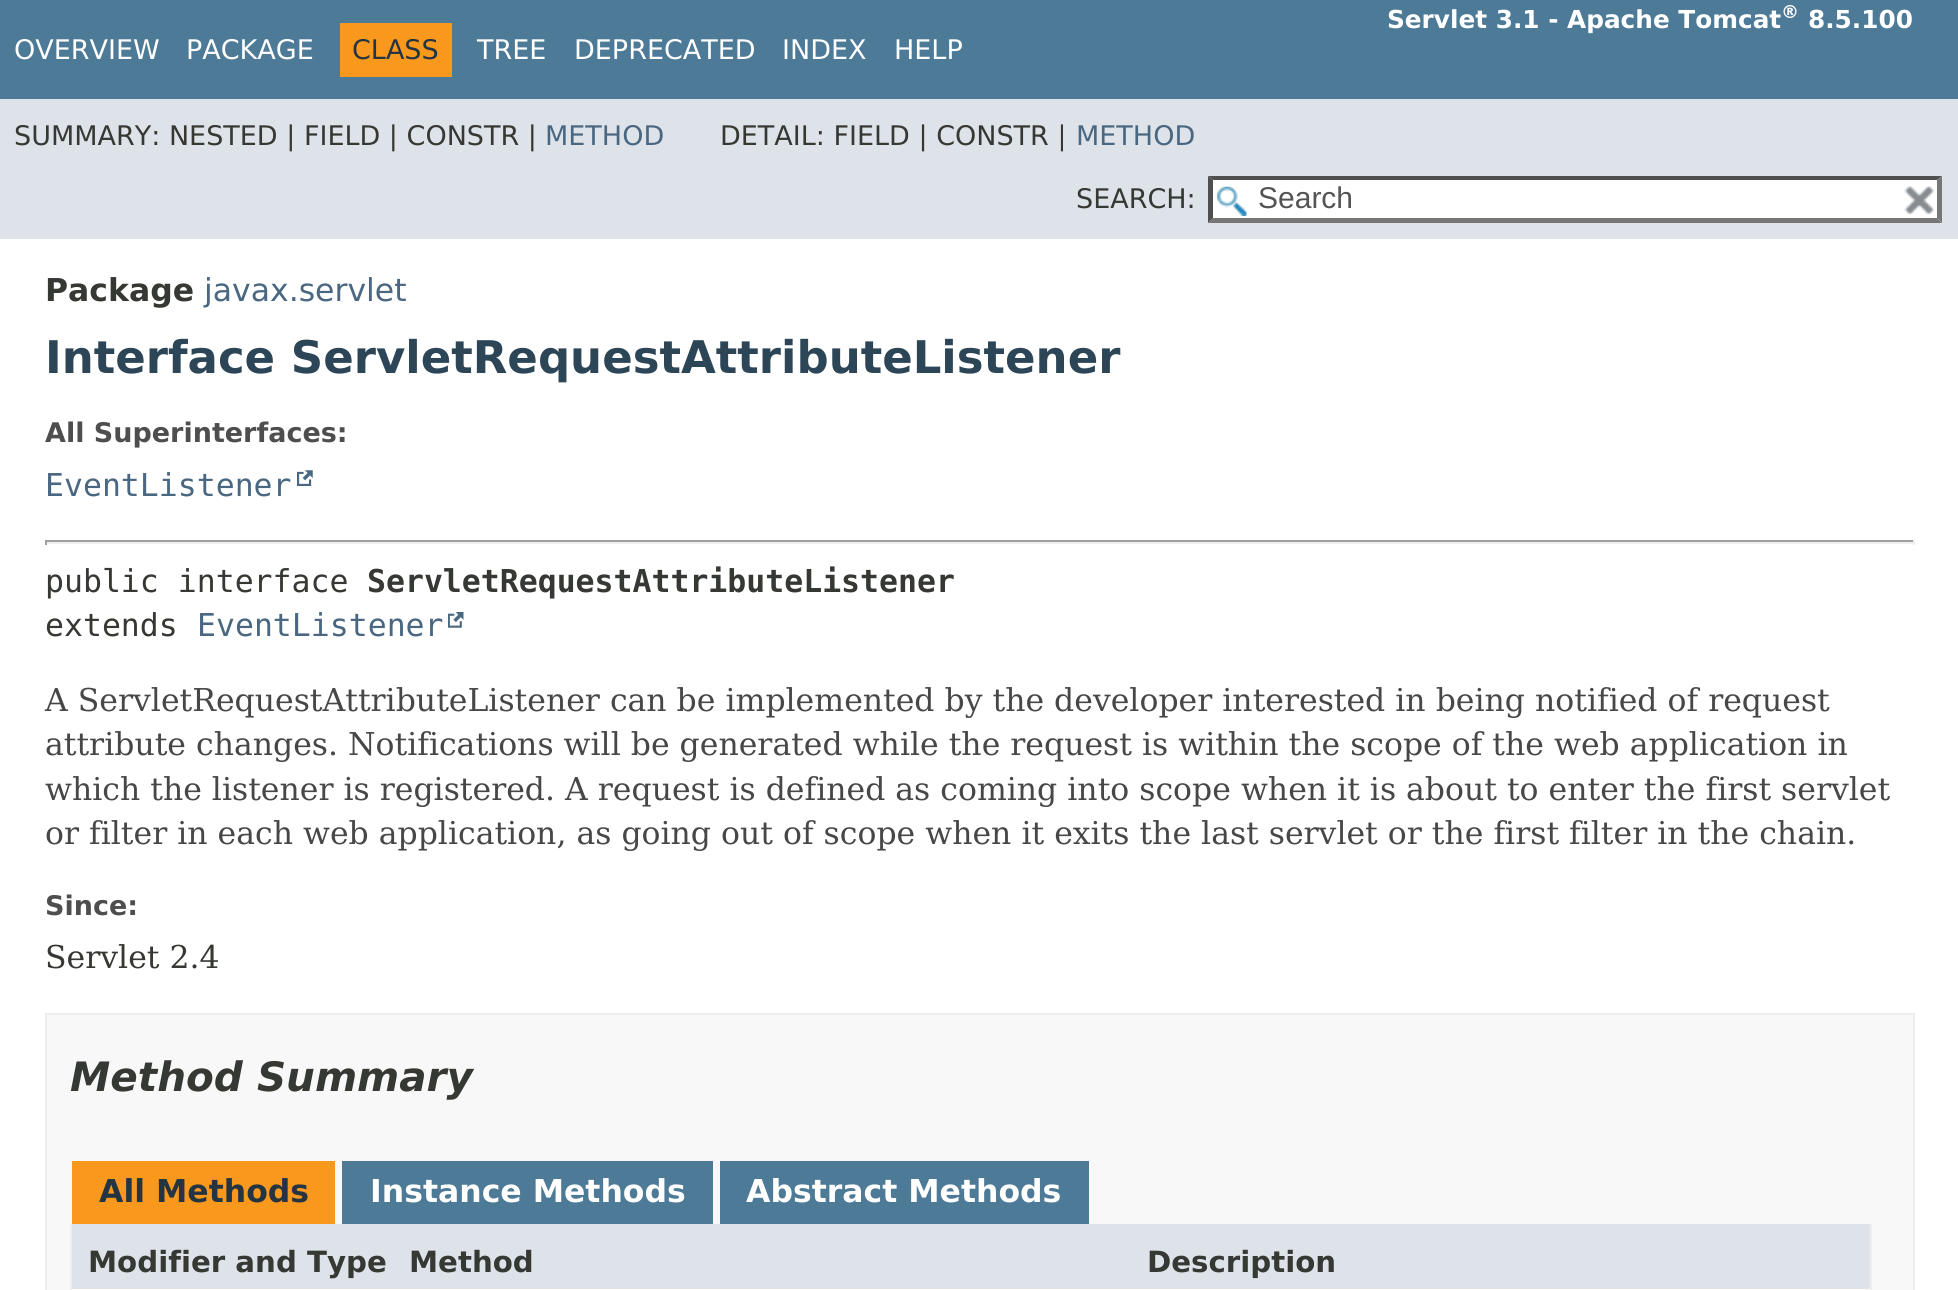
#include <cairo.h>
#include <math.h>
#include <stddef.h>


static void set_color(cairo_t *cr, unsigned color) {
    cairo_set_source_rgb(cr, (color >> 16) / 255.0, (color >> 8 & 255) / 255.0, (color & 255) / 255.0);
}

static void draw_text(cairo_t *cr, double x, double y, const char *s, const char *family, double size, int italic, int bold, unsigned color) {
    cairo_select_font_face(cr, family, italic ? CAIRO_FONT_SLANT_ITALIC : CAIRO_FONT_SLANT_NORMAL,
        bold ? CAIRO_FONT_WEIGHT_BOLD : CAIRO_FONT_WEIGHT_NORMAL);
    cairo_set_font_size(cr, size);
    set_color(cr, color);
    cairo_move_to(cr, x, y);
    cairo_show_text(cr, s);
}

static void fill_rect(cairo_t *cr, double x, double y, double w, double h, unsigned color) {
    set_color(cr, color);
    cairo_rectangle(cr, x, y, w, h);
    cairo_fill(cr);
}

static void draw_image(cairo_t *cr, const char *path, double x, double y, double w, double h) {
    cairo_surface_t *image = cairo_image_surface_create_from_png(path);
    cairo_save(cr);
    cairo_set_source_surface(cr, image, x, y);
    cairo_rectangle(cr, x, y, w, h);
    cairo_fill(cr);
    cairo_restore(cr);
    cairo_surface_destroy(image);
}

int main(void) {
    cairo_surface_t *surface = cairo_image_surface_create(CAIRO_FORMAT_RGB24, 1958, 1290);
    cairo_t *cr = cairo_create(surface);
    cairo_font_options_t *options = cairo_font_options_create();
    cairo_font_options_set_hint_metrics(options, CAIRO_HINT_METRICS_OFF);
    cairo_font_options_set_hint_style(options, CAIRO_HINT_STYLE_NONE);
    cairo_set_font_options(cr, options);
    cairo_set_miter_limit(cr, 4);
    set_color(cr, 0xFFFFFF);
    cairo_paint(cr);
    fill_rect(cr, 0, 0, 1958, 99, 0x4D7A97);
    draw_text(cr, 1387, 28, "Servlet 3.1 - Apache Tomcat", "DejaVu Sans", 24.75, 0, 1, 0xFFFFFF);
    draw_text(cr, 1781, 18, "®", "DejaVu Sans", 18, 0, 1, 0xFFFFFF);
    draw_text(cr, 1808, 28, "8.5.100", "DejaVu Sans", 24.75, 0, 1, 0xFFFFFF);
    draw_text(cr, 14, 59, "OVERVIEW", "DejaVu Sans", 27, 0, 0, 0xFFFFFF);
    draw_text(cr, 186, 59, "PACKAGE", "DejaVu Sans", 27, 0, 0, 0xFFFFFF);
    fill_rect(cr, 340, 23, 112, 54, 0xF8981D);
    draw_text(cr, 352, 59, "CLASS", "DejaVu Sans", 27, 0, 0, 0x253441);
    draw_text(cr, 477, 59, "TREE", "DejaVu Sans", 27, 0, 0, 0xFFFFFF);
    draw_text(cr, 574, 59, "DEPRECATED", "DejaVu Sans", 27, 0, 0, 0xFFFFFF);
    draw_text(cr, 782, 59, "INDEX", "DejaVu Sans", 27, 0, 0, 0xFFFFFF);
    draw_text(cr, 894, 59, "HELP", "DejaVu Sans", 27, 0, 0, 0xFFFFFF);
    fill_rect(cr, 0, 99, 1958, 140, 0xDEE3E9);
    draw_text(cr, 14, 145, "SUMMARY: NESTED | FIELD | CONSTR |", "DejaVu Sans", 27, 0, 0, 0x353833);
    draw_text(cr, 545, 145, "METHOD", "DejaVu Sans", 27, 0, 0, 0x4A6782);
    draw_text(cr, 720, 145, "DETAIL: FIELD | CONSTR |", "DejaVu Sans", 27, 0, 0, 0x353833);
    draw_text(cr, 1076, 145, "METHOD", "DejaVu Sans", 27, 0, 0, 0x4A6782);
    draw_text(cr, 1076, 208, "SEARCH:", "DejaVu Sans", 27, 0, 0, 0x353833);
    fill_rect(cr, 1208, 176, 734, 47, 0xFFFFFF);
    draw_image(cr, "assets/img1.png", 1217, 186, 30, 30);
    set_color(cr, 0x4F4F4F);
    cairo_new_path(cr);
    cairo_move_to(cr, 1208, 176);
    cairo_line_to(cr, 1942, 176);
    cairo_line_to(cr, 1937, 180);
    cairo_line_to(cr, 1213, 180);
    cairo_close_path(cr);
    cairo_fill(cr);
    set_color(cr, 0x767676);
    cairo_new_path(cr);
    cairo_move_to(cr, 1942, 176);
    cairo_line_to(cr, 1942, 223);
    cairo_line_to(cr, 1937, 218);
    cairo_line_to(cr, 1937, 180);
    cairo_close_path(cr);
    cairo_fill(cr);
    cairo_new_path(cr);
    cairo_move_to(cr, 1942, 223);
    cairo_line_to(cr, 1208, 223);
    cairo_line_to(cr, 1213, 218);
    cairo_line_to(cr, 1937, 218);
    cairo_close_path(cr);
    cairo_fill(cr);
    set_color(cr, 0x4F4F4F);
    cairo_new_path(cr);
    cairo_move_to(cr, 1208, 223);
    cairo_line_to(cr, 1208, 176);
    cairo_line_to(cr, 1213, 180);
    cairo_line_to(cr, 1213, 218);
    cairo_close_path(cr);
    cairo_fill(cr);
    draw_text(cr, 1258, 208, "Search", "Liberation Sans", 30, 0, 0, 0x545454);
    draw_image(cr, "assets/img2.png", 1904, 186, 30, 29);
    draw_text(cr, 45, 301, "Package", "DejaVu Sans", 31.5, 0, 1, 0x353833);
    draw_text(cr, 204, 301, "javax.servlet", "DejaVu Sans", 31.5, 0, 0, 0x4A6782);
    draw_text(cr, 45, 373, "Interface ServletRequestAttributeListener", "DejaVu Sans", 45, 0, 1, 0x2C4557);
    draw_text(cr, 45, 442, "All Superinterfaces:", "DejaVu Sans", 27, 0, 1, 0x4E4E4E);
    draw_text(cr, 45, 496, "EventListener", "DejaVu Sans Mono", 31.5, 0, 0, 0x4A6782);
    draw_image(cr, "assets/img3.png", 297, 470, 16, 16);
    fill_rect(cr, 45, 540, 1870, 2, 0x9F9F9F);
    fill_rect(cr, 1913, 540, 2, 5, 0xEEEEEE);
    fill_rect(cr, 45, 542, 1870, 2, 0xEEEEEE);
    fill_rect(cr, 45, 540, 2, 5, 0x9F9F9F);
    draw_text(cr, 45, 592, "public interface", "DejaVu Sans Mono", 31.5, 0, 0, 0x353833);
    draw_text(cr, 367, 592, "ServletRequestAttributeListener", "DejaVu Sans Mono", 31.5, 0, 1, 0x353833);
    draw_text(cr, 45, 636, "extends", "DejaVu Sans Mono", 31.5, 0, 0, 0x353833);
    draw_text(cr, 197, 636, "EventListener", "DejaVu Sans Mono", 31.5, 0, 0, 0x4A6782);
    draw_image(cr, "assets/img4.png", 448, 612, 16, 16);
    draw_text(cr, 45, 711, "A ServletRequestAttributeListener can be implemented by the developer interested in being notified of request", "DejaVu Serif", 31.5, 0, 0, 0x474747);
    draw_text(cr, 45, 755, "attribute changes. Notifications will be generated while the request is within the scope of the web application in", "DejaVu Serif", 31.5, 0, 0, 0x474747);
    draw_text(cr, 45, 800, "which the listener is registered. A request is defined as coming into scope when it is about to enter the first servlet", "DejaVu Serif", 31.5, 0, 0, 0x474747);
    draw_text(cr, 45, 844, "or filter in each web application, as going out of scope when it exits the last servlet or the first filter in the chain.", "DejaVu Serif", 31.5, 0, 0, 0x474747);
    draw_text(cr, 45, 915, "Since:", "DejaVu Sans", 27, 0, 1, 0x4E4E4E);
    draw_text(cr, 45, 968, "Servlet 2.4", "DejaVu Serif", 31.5, 0, 0, 0x353833);
    set_color(cr, 0xF8F8F8);
    cairo_rectangle(cr, 46, 1014, 1868, 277);
    cairo_fill_preserve(cr);
    set_color(cr, 0xEDEDED);
    cairo_stroke(cr);
    draw_text(cr, 70, 1091, "Method Summary", "DejaVu Sans", 40.5, 1, 1, 0x353833);
    fill_rect(cr, 72, 1161, 263, 63, 0xF8981D);
    draw_text(cr, 99, 1202, "All Methods", "DejaVu Sans", 31.5, 0, 1, 0x253441);
    fill_rect(cr, 342, 1161, 371, 63, 0x4D7A97);
    draw_text(cr, 370, 1202, "Instance Methods", "DejaVu Sans", 31.5, 0, 1, 0xFFFFFF);
    fill_rect(cr, 720, 1161, 369, 63, 0x4D7A97);
    draw_text(cr, 746, 1202, "Abstract Methods", "DejaVu Sans", 31.5, 0, 1, 0xFFFFFF);
    fill_rect(cr, 1870, 1224, 2, 66, 0xEEEEEE);
    fill_rect(cr, 70, 1224, 2, 66, 0xEEEEEE);
    fill_rect(cr, 72, 1224, 1060, 65, 0xDEE3E9);
    draw_text(cr, 88, 1272, "Modifier and Type", "DejaVu Sans", 29.25, 0, 1, 0x353833);
    draw_text(cr, 409, 1272, "Method", "DejaVu Sans", 29.25, 0, 1, 0x353833);
    fill_rect(cr, 1132, 1224, 738, 65, 0xDEE3E9);
    draw_text(cr, 1147, 1272, "Description", "DejaVu Sans", 29.25, 0, 1, 0x353833);
    fill_rect(cr, 72, 1289, 1060, 1, 0xFFFFFF);
    fill_rect(cr, 1132, 1289, 738, 1, 0xFFFFFF);
    cairo_surface_write_to_png(surface, "output.png");
    cairo_font_options_destroy(options);
    cairo_destroy(cr);
    cairo_surface_destroy(surface);
    return 0;
}
